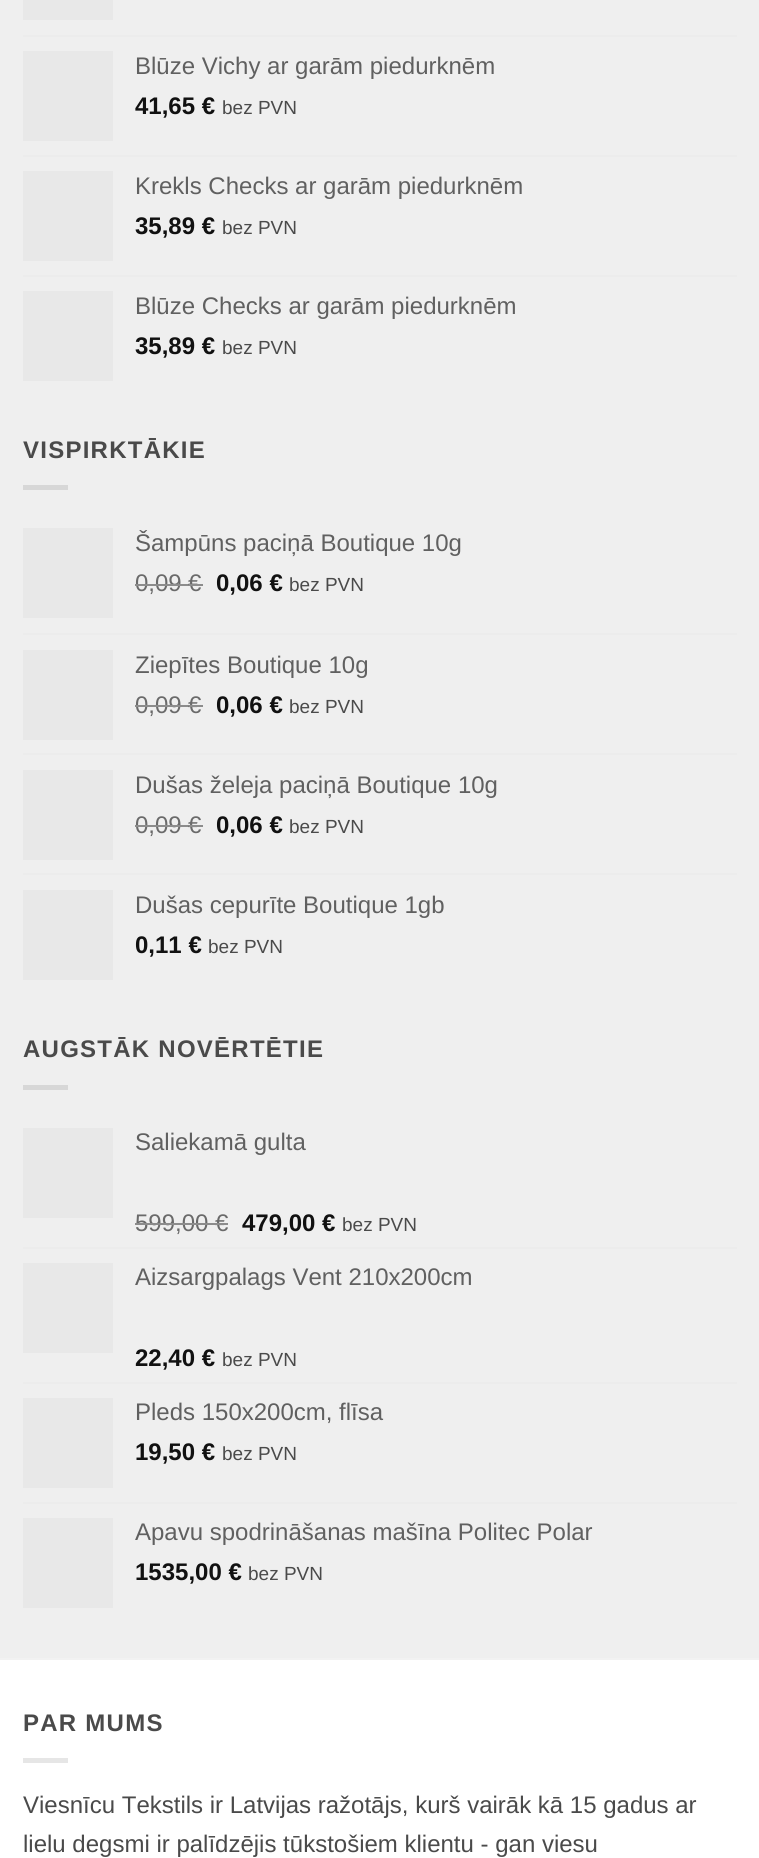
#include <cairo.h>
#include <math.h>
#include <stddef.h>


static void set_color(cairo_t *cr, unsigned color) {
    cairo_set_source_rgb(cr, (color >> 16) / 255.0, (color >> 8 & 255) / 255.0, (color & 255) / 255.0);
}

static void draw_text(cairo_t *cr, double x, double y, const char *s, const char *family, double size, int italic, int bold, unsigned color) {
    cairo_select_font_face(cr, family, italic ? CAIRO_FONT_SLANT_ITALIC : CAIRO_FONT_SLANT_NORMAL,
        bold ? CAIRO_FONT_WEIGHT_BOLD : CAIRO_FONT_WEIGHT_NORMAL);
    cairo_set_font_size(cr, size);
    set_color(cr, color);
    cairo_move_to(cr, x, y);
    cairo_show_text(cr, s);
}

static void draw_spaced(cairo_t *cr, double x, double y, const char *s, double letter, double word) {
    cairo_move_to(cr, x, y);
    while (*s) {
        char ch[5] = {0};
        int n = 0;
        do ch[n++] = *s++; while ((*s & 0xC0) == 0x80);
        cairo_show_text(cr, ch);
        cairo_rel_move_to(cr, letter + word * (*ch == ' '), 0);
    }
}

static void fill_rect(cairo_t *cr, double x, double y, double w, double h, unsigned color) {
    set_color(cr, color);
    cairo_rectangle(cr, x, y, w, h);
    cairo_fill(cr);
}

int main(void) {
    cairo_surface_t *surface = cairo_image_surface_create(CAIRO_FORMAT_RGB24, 759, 1858);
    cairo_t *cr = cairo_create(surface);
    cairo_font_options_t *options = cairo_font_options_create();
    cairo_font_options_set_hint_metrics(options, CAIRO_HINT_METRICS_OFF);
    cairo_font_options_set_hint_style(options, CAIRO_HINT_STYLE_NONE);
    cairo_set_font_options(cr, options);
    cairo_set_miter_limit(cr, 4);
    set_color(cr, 0xFFFFFF);
    cairo_paint(cr);
    fill_rect(cr, 0, 0, 759, 1658, 0xEFEFEF);
    fill_rect(cr, 23, 0, 90, 20, 0xE8E8E8);
    fill_rect(cr, 23, 35, 714, 2, 0xECECEC);
    fill_rect(cr, 23, 51, 90, 90, 0xE8E8E8);
    draw_text(cr, 135, 74, "Blūze Vichy ar garām piedurknēm", "Liberation Sans", 24, 0, 0, 0x606060);
    draw_text(cr, 135, 114, "41,65 €", "Liberation Sans", 24, 0, 1, 0x111111);
    draw_text(cr, 222, 114, "bez PVN", "Liberation Sans", 19, 0, 0, 0x4A4A4A);
    fill_rect(cr, 23, 155, 714, 2, 0xECECEC);
    fill_rect(cr, 23, 171, 90, 90, 0xE8E8E8);
    draw_text(cr, 135, 194, "Krekls Checks ar garām piedurknēm", "Liberation Sans", 24, 0, 0, 0x606060);
    draw_text(cr, 135, 234, "35,89 €", "Liberation Sans", 24, 0, 1, 0x111111);
    draw_text(cr, 222, 234, "bez PVN", "Liberation Sans", 19, 0, 0, 0x4A4A4A);
    fill_rect(cr, 23, 275, 714, 2, 0xECECEC);
    fill_rect(cr, 23, 291, 90, 90, 0xE8E8E8);
    draw_text(cr, 135, 314, "Blūze Checks ar garām piedurknēm", "Liberation Sans", 24, 0, 0, 0x606060);
    draw_text(cr, 135, 354, "35,89 €", "Liberation Sans", 24, 0, 1, 0x111111);
    draw_text(cr, 222, 354, "bez PVN", "Liberation Sans", 19, 0, 0, 0x4A4A4A);
    cairo_select_font_face(cr, "Liberation Sans", CAIRO_FONT_SLANT_NORMAL, CAIRO_FONT_WEIGHT_BOLD);
    cairo_set_font_size(cr, 24);
    draw_spaced(cr, 23, 458, "VISPIRKTĀKIE", 1.25, 0);
    fill_rect(cr, 23, 485, 45, 5, 0xD7D7D7);
    fill_rect(cr, 23, 528, 90, 90, 0xE8E8E8);
    draw_text(cr, 135, 551, "Šampūns paciņā Boutique 10g", "Liberation Sans", 24, 0, 0, 0x606060);
    draw_text(cr, 135, 591, "0,09", "Liberation Sans", 24, 0, 0, 0x6A6A6A);
    fill_rect(cr, 135, 584, 54, 2, 0x8C8C8C);
    draw_text(cr, 188, 591, "€", "Liberation Sans", 24, 0, 0, 0x6A6A6A);
    fill_rect(cr, 189, 584, 14, 2, 0x8C8C8C);
    draw_text(cr, 216, 591, "0,06 €", "Liberation Sans", 24, 0, 1, 0x111111);
    draw_text(cr, 289, 591, "bez PVN", "Liberation Sans", 19, 0, 0, 0x4A4A4A);
    fill_rect(cr, 23, 633, 714, 2, 0xECECEC);
    fill_rect(cr, 23, 650, 90, 90, 0xE8E8E8);
    draw_text(cr, 135, 673, "Ziepītes Boutique 10g", "Liberation Sans", 24, 0, 0, 0x606060);
    draw_text(cr, 135, 713, "0,09", "Liberation Sans", 24, 0, 0, 0x6A6A6A);
    fill_rect(cr, 135, 705, 54, 2, 0x8C8C8C);
    draw_text(cr, 188, 713, "€", "Liberation Sans", 24, 0, 0, 0x6A6A6A);
    fill_rect(cr, 189, 705, 14, 2, 0x8C8C8C);
    draw_text(cr, 216, 713, "0,06 €", "Liberation Sans", 24, 0, 1, 0x111111);
    draw_text(cr, 289, 713, "bez PVN", "Liberation Sans", 19, 0, 0, 0x4A4A4A);
    fill_rect(cr, 23, 753, 714, 2, 0xECECEC);
    fill_rect(cr, 23, 770, 90, 90, 0xE8E8E8);
    draw_text(cr, 135, 793, "Dušas želeja paciņā Boutique 10g", "Liberation Sans", 24, 0, 0, 0x606060);
    draw_text(cr, 135, 833, "0,09", "Liberation Sans", 24, 0, 0, 0x6A6A6A);
    fill_rect(cr, 135, 825, 54, 2, 0x8C8C8C);
    draw_text(cr, 188, 833, "€", "Liberation Sans", 24, 0, 0, 0x6A6A6A);
    fill_rect(cr, 189, 825, 14, 2, 0x8C8C8C);
    draw_text(cr, 216, 833, "0,06 €", "Liberation Sans", 24, 0, 1, 0x111111);
    draw_text(cr, 289, 833, "bez PVN", "Liberation Sans", 19, 0, 0, 0x4A4A4A);
    fill_rect(cr, 23, 873, 714, 2, 0xECECEC);
    fill_rect(cr, 23, 890, 90, 90, 0xE8E8E8);
    draw_text(cr, 135, 913, "Dušas cepurīte Boutique 1gb", "Liberation Sans", 24, 0, 0, 0x606060);
    draw_text(cr, 135, 953, "0,11 €", "Liberation Sans", 24, 0, 1, 0x111111);
    draw_text(cr, 208, 953, "bez PVN", "Liberation Sans", 19, 0, 0, 0x4A4A4A);
    cairo_select_font_face(cr, "Liberation Sans", CAIRO_FONT_SLANT_NORMAL, CAIRO_FONT_WEIGHT_BOLD);
    cairo_set_font_size(cr, 24);
    draw_spaced(cr, 23, 1057, "AUGSTĀK NOVĒRTĒTIE", 1.25, 0);
    fill_rect(cr, 23, 1085, 45, 5, 0xD7D7D7);
    fill_rect(cr, 23, 1128, 90, 90, 0xE8E8E8);
    draw_text(cr, 135, 1150, "Saliekamā gulta", "Liberation Sans", 24, 0, 0, 0x606060);
    draw_text(cr, 135, 1231, "599,00 €", "Liberation Sans", 24, 0, 0, 0x6A6A6A);
    fill_rect(cr, 135, 1223, 93, 2, 0x8C8C8C);
    draw_text(cr, 242, 1231, "479,00 €", "Liberation Sans", 24, 0, 1, 0x111111);
    draw_text(cr, 342, 1231, "bez PVN", "Liberation Sans", 19, 0, 0, 0x4A4A4A);
    fill_rect(cr, 23, 1247, 714, 2, 0xECECEC);
    fill_rect(cr, 23, 1263, 90, 90, 0xE8E8E8);
    draw_text(cr, 135, 1285, "Aizsargpalags Vent 210x200cm", "Liberation Sans", 24, 0, 0, 0x606060);
    draw_text(cr, 135, 1366, "22,40 €", "Liberation Sans", 24, 0, 1, 0x111111);
    draw_text(cr, 222, 1366, "bez PVN", "Liberation Sans", 19, 0, 0, 0x4A4A4A);
    fill_rect(cr, 23, 1382, 714, 2, 0xECECEC);
    fill_rect(cr, 23, 1398, 90, 90, 0xE8E8E8);
    draw_text(cr, 135, 1420, "Pleds 150x200cm, flīsa", "Liberation Sans", 24, 0, 0, 0x606060);
    draw_text(cr, 135, 1460, "19,50 €", "Liberation Sans", 24, 0, 1, 0x111111);
    draw_text(cr, 222, 1460, "bez PVN", "Liberation Sans", 19, 0, 0, 0x4A4A4A);
    fill_rect(cr, 23, 1502, 714, 2, 0xECECEC);
    fill_rect(cr, 23, 1518, 90, 90, 0xE8E8E8);
    draw_text(cr, 135, 1540, "Apavu spodrināšanas mašīna Politec Polar", "Liberation Sans", 24, 0, 0, 0x606060);
    draw_text(cr, 135, 1580, "1535,00 €", "Liberation Sans", 24, 0, 1, 0x111111);
    draw_text(cr, 248, 1580, "bez PVN", "Liberation Sans", 19, 0, 0, 0x4A4A4A);
    fill_rect(cr, 0, 1658, 759, 2, 0xF2F2F2);
    cairo_select_font_face(cr, "Liberation Sans", CAIRO_FONT_SLANT_NORMAL, CAIRO_FONT_WEIGHT_BOLD);
    cairo_set_font_size(cr, 24);
    set_color(cr, 0x4A4A4A);
    draw_spaced(cr, 23, 1731, "PAR MUMS", 1.25, 0);
    fill_rect(cr, 23, 1758, 45, 5, 0xE6E6E6);
    draw_text(cr, 23, 1813, "Viesnīcu Tekstils ir Latvijas ražotājs, kurš vairāk kā 15 gadus ar", "Liberation Sans", 24, 0, 0, 0x4A4A4A);
    draw_text(cr, 23, 1852, "lielu degsmi ir palīdzējis tūkstošiem klientu - gan viesu", "Liberation Sans", 24, 0, 0, 0x4A4A4A);
    cairo_surface_write_to_png(surface, "output.png");
    cairo_font_options_destroy(options);
    cairo_destroy(cr);
    cairo_surface_destroy(surface);
    return 0;
}
